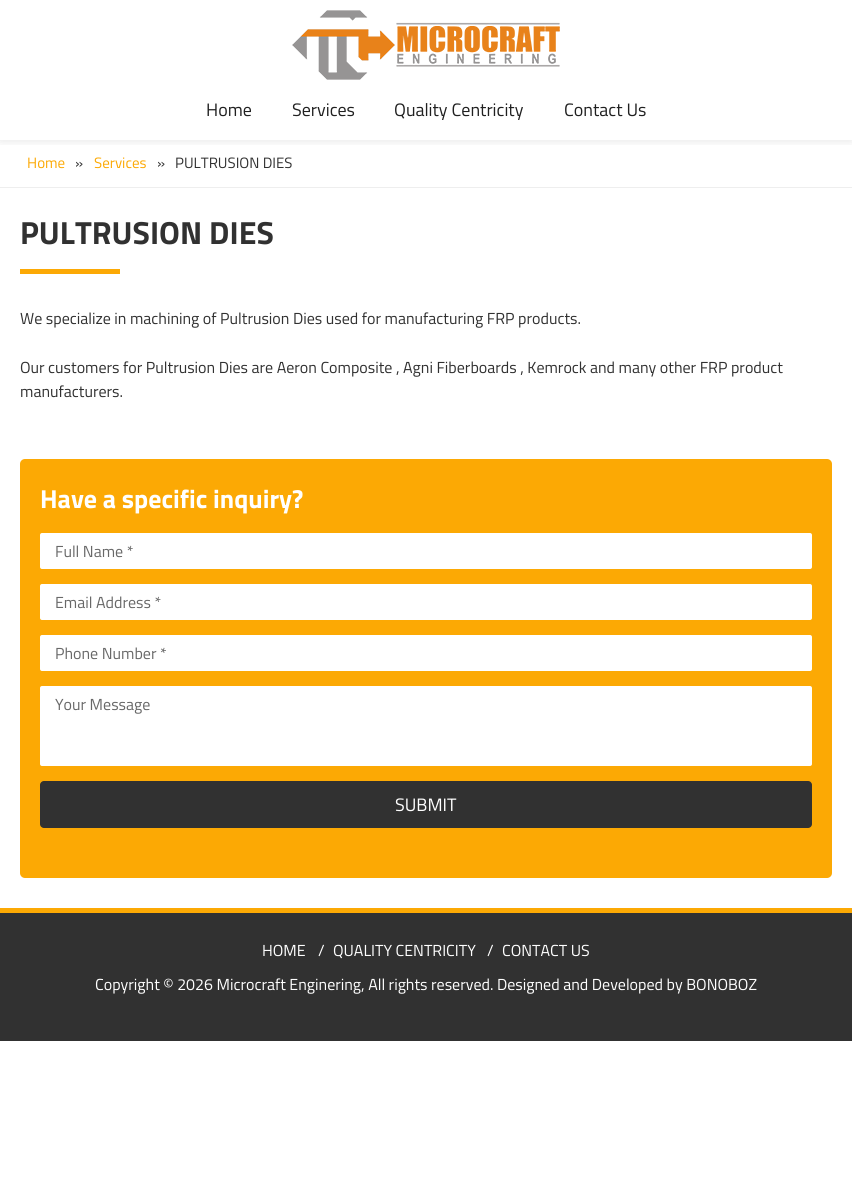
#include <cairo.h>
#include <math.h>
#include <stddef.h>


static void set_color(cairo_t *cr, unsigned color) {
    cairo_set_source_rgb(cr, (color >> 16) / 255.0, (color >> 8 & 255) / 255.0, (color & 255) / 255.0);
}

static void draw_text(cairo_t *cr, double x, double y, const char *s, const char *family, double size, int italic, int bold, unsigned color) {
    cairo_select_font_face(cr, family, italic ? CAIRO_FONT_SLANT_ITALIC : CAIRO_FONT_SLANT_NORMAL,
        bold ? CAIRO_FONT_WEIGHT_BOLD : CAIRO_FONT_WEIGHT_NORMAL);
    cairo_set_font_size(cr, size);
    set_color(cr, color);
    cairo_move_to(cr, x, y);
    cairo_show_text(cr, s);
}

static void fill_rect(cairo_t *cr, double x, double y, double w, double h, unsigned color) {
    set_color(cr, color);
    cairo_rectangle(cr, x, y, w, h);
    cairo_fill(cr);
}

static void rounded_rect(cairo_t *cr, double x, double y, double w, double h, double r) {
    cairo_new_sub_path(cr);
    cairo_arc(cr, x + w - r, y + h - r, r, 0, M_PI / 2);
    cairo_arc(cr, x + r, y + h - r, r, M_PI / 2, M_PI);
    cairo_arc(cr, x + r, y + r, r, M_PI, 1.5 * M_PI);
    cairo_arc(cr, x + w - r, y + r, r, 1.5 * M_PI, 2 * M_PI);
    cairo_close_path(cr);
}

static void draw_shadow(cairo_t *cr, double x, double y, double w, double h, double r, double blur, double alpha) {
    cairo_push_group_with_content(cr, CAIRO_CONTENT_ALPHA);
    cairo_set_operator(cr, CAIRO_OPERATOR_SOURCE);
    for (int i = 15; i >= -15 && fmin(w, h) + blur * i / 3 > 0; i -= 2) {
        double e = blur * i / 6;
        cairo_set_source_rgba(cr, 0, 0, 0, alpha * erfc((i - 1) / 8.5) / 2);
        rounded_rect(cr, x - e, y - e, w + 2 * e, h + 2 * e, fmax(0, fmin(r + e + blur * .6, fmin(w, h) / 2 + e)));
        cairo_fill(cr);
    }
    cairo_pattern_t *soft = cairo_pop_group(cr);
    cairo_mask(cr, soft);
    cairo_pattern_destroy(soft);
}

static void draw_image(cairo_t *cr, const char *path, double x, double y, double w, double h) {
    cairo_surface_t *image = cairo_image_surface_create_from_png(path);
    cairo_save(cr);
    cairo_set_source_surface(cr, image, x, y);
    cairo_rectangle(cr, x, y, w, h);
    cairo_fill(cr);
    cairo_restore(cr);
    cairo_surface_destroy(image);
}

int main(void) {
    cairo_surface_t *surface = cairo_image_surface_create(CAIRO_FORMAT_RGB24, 852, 1177);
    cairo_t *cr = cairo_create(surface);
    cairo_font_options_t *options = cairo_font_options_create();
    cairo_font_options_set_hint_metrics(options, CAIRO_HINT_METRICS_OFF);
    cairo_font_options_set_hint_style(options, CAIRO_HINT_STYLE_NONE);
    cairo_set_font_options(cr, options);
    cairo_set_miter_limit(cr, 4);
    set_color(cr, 0xFFFFFF);
    cairo_paint(cr);
    cairo_save(cr);
    cairo_rectangle(cr, 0, 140, 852, 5);
    cairo_clip(cr);
    set_color(cr, 0x000000);
    draw_shadow(cr, 0, 1, 852, 140, 0, 5, 0.1);
    cairo_restore(cr);
    draw_image(cr, "assets/img1.png", 292, 10, 268, 70);
    draw_text(cr, 206, 116, "Home", "Titillium Web", 18, 0, 0, 0x202020);
    draw_text(cr, 292, 116, "Services", "Titillium Web", 18, 0, 0, 0x202020);
    draw_text(cr, 394, 116, "Quality Centricity", "Titillium Web", 18, 0, 0, 0x202020);
    draw_text(cr, 564, 116, "Contact Us", "Titillium Web", 18, 0, 0, 0x202020);
    fill_rect(cr, 0, 187, 852, 1, 0xEEEEEE);
    draw_text(cr, 27, 168, "Home", "Titillium Web", 15, 0, 0, 0xFCA904);
    draw_text(cr, 75, 168, "»", "Titillium Web", 15, 0, 0, 0x313131);
    draw_text(cr, 94, 168, "Services", "Titillium Web", 15, 0, 0, 0xFCA904);
    draw_text(cr, 157, 168, "»", "Titillium Web", 15, 0, 0, 0x313131);
    draw_text(cr, 175, 168, "PULTRUSION DIES", "Titillium Web", 15, 0, 0, 0x313131);
    draw_text(cr, 20, 244, "PULTRUSION DIES", "Titillium Web", 32, 0, 1, 0x313131);
    fill_rect(cr, 20, 269, 100, 5, 0xFCA904);
    draw_text(cr, 20, 324, "We specialize in machining of Pultrusion Dies used for manufacturing FRP products.", "Titillium Web", 16, 0, 0, 0x313131);
    draw_text(cr, 20, 373, "Our customers for Pultrusion Dies are Aeron Composite , Agni Fiberboards , Kemrock and many other FRP product", "Titillium Web", 16, 0, 0, 0x313131);
    draw_text(cr, 20, 397, "manufacturers.", "Titillium Web", 16, 0, 0, 0x313131);
    set_color(cr, 0xFCA904);
    rounded_rect(cr, 20, 459, 812, 419, 5);
    cairo_fill(cr);
    draw_text(cr, 40, 508, "Have a specific inquiry?", "Titillium Web", 26, 0, 1, 0xFFFFFF);
    rounded_rect(cr, 40, 533, 772, 36, 2);
    cairo_fill(cr);
    draw_text(cr, 55, 557, "Full Name *", "Titillium Web", 16, 0, 0, 0x686868);
    set_color(cr, 0xFFFFFF);
    rounded_rect(cr, 40, 584, 772, 36, 2);
    cairo_fill(cr);
    draw_text(cr, 55, 608, "Email Address *", "Titillium Web", 16, 0, 0, 0x686868);
    set_color(cr, 0xFFFFFF);
    rounded_rect(cr, 40, 635, 772, 36, 2);
    cairo_fill(cr);
    draw_text(cr, 55, 659, "Phone Number *", "Titillium Web", 16, 0, 0, 0x686868);
    set_color(cr, 0xFFFFFF);
    rounded_rect(cr, 40, 686, 772, 80, 2);
    cairo_fill(cr);
    draw_text(cr, 55, 710, "Your Message", "Titillium Web", 16, 0, 0, 0x686868);
    set_color(cr, 0x313131);
    rounded_rect(cr, 40, 781, 772, 47, 4);
    cairo_fill(cr);
    draw_text(cr, 395, 811, "SUBMIT", "Titillium Web", 18, 0, 0, 0xFFFFFF);
    fill_rect(cr, 0, 913, 852, 128, 0x313131);
    fill_rect(cr, 0, 908, 852, 5, 0xFCA904);
    draw_text(cr, 262, 956, "HOME", "Titillium Web", 16, 0, 0, 0xFFFFFF);
    draw_text(cr, 318, 956, "/", "Titillium Web", 16, 0, 0, 0xFFFFFF);
    draw_text(cr, 333, 956, "QUALITY CENTRICITY", "Titillium Web", 16, 0, 0, 0xFFFFFF);
    draw_text(cr, 487, 956, "/", "Titillium Web", 16, 0, 0, 0xFFFFFF);
    draw_text(cr, 502, 956, "CONTACT US", "Titillium Web", 16, 0, 0, 0xFFFFFF);
    draw_text(cr, 95, 990, "Copyright © 2026 Microcraft Enginering, All rights reserved. Designed and Developed by BONOBOZ", "Titillium Web", 16, 0, 0, 0xFFFFFF);
    cairo_surface_write_to_png(surface, "output.png");
    cairo_font_options_destroy(options);
    cairo_destroy(cr);
    cairo_surface_destroy(surface);
    return 0;
}
